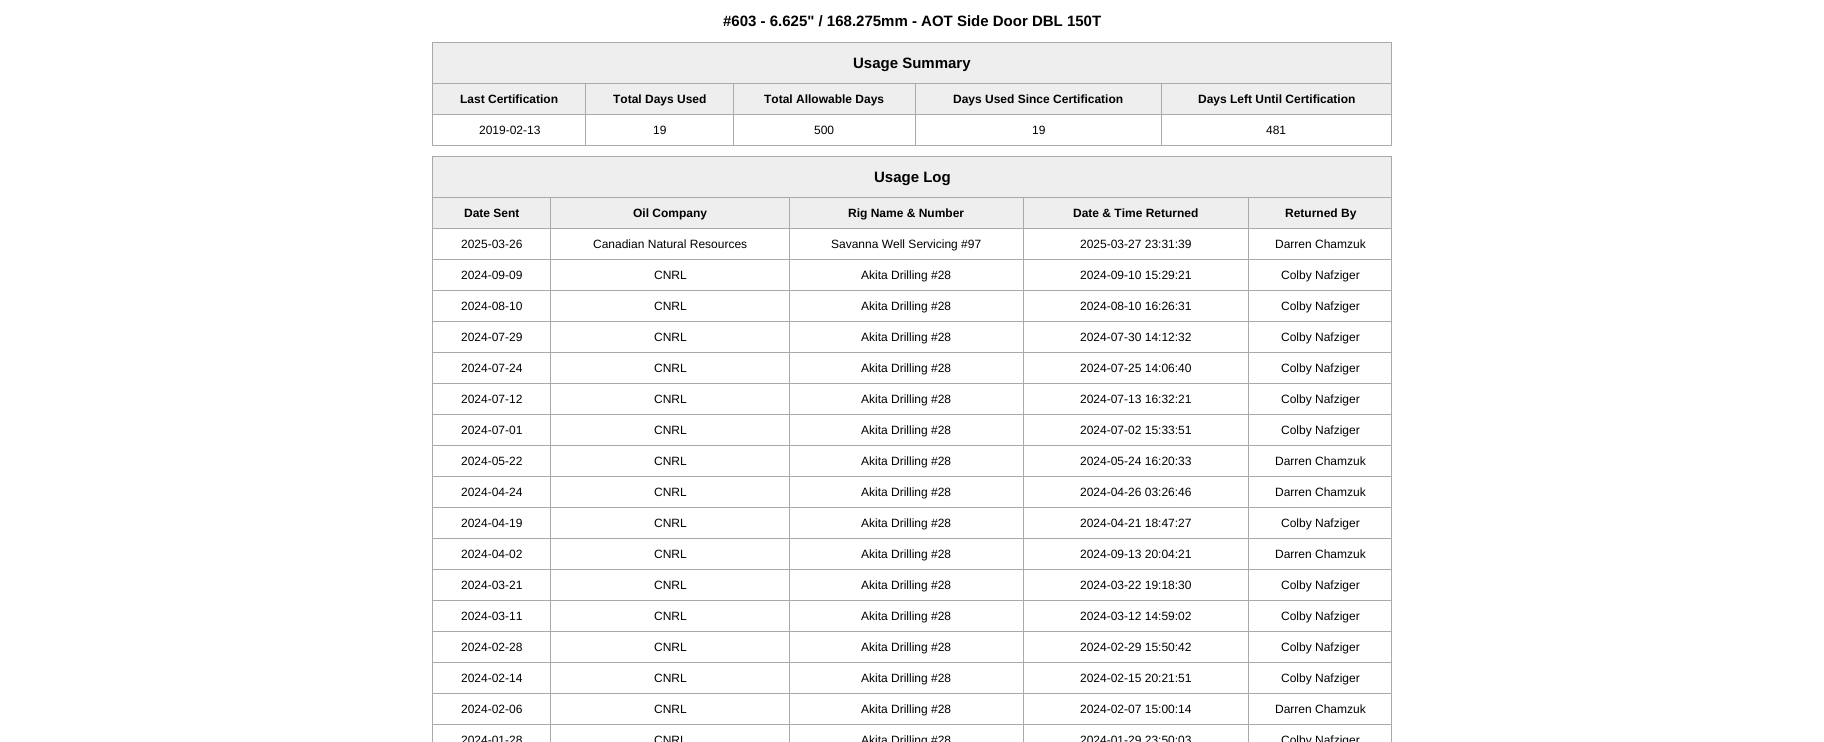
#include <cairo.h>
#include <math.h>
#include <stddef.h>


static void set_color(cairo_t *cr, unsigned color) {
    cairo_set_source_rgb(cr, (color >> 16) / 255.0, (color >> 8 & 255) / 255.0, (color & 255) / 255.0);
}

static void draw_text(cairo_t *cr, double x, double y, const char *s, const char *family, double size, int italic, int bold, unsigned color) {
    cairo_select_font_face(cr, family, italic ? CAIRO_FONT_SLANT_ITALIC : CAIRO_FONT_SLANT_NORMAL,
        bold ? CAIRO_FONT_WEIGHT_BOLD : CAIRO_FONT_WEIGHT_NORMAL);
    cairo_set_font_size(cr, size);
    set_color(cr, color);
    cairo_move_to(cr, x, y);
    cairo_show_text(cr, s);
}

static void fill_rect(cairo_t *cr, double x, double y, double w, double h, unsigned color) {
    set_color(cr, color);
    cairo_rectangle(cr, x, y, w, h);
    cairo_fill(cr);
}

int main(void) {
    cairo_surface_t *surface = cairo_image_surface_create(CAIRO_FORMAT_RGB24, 1824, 742);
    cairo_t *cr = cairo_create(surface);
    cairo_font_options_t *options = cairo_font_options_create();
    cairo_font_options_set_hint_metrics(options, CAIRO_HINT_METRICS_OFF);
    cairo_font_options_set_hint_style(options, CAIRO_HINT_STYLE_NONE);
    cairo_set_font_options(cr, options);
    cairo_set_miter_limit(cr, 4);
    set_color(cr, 0xFFFFFF);
    cairo_paint(cr);
    draw_text(cr, 723, 26, "#603 - 6.625\" / 168.275mm - AOT Side Door DBL 150T", "Liberation Sans", 15, 0, 1, 0x000000);
    fill_rect(cr, 432, 42, 960, 1, 0xAAAAAA);
    fill_rect(cr, 1391, 42, 1, 104, 0xAAAAAA);
    fill_rect(cr, 432, 145, 960, 1, 0xAAAAAA);
    fill_rect(cr, 432, 42, 1, 104, 0xAAAAAA);
    fill_rect(cr, 433, 43, 958, 40, 0xEEEEEE);
    draw_text(cr, 853, 68, "Usage Summary", "Liberation Sans", 15, 0, 1, 0x000000);
    fill_rect(cr, 432, 83, 960, 1, 0xAAAAAA);
    fill_rect(cr, 433, 84, 152, 30, 0xEEEEEE);
    draw_text(cr, 460, 103, "Last Certification", "Liberation Sans", 12, 0, 1, 0x000000);
    fill_rect(cr, 586, 84, 147, 30, 0xEEEEEE);
    draw_text(cr, 613, 103, "Total Days Used", "Liberation Sans", 12, 0, 1, 0x000000);
    fill_rect(cr, 734, 84, 181, 30, 0xEEEEEE);
    draw_text(cr, 764, 103, "Total Allowable Days", "Liberation Sans", 12, 0, 1, 0x000000);
    fill_rect(cr, 916, 84, 245, 30, 0xEEEEEE);
    draw_text(cr, 953, 103, "Days Used Since Certification", "Liberation Sans", 12, 0, 1, 0x000000);
    fill_rect(cr, 1162, 84, 229, 30, 0xEEEEEE);
    draw_text(cr, 1198, 103, "Days Left Until Certification", "Liberation Sans", 12, 0, 1, 0x000000);
    fill_rect(cr, 432, 114, 960, 1, 0xAAAAAA);
    draw_text(cr, 479, 134, "2019-02-13", "Liberation Sans", 12, 0, 0, 0x000000);
    fill_rect(cr, 585, 83, 1, 63, 0xAAAAAA);
    draw_text(cr, 653, 134, "19", "Liberation Sans", 12, 0, 0, 0x000000);
    fill_rect(cr, 733, 83, 1, 63, 0xAAAAAA);
    draw_text(cr, 814, 134, "500", "Liberation Sans", 12, 0, 0, 0x000000);
    fill_rect(cr, 915, 83, 1, 63, 0xAAAAAA);
    draw_text(cr, 1032, 134, "19", "Liberation Sans", 12, 0, 0, 0x000000);
    fill_rect(cr, 1161, 83, 1, 63, 0xAAAAAA);
    draw_text(cr, 1266, 134, "481", "Liberation Sans", 12, 0, 0, 0x000000);
    fill_rect(cr, 432, 156, 960, 1, 0xAAAAAA);
    fill_rect(cr, 1391, 156, 1, 586, 0xAAAAAA);
    fill_rect(cr, 432, 156, 1, 586, 0xAAAAAA);
    fill_rect(cr, 433, 157, 958, 40, 0xEEEEEE);
    draw_text(cr, 874, 182, "Usage Log", "Liberation Sans", 15, 0, 1, 0x000000);
    fill_rect(cr, 432, 197, 960, 1, 0xAAAAAA);
    fill_rect(cr, 433, 198, 117, 30, 0xEEEEEE);
    draw_text(cr, 464, 217, "Date Sent", "Liberation Sans", 12, 0, 1, 0x000000);
    fill_rect(cr, 551, 198, 238, 30, 0xEEEEEE);
    draw_text(cr, 633, 217, "Oil Company", "Liberation Sans", 12, 0, 1, 0x000000);
    fill_rect(cr, 790, 198, 233, 30, 0xEEEEEE);
    draw_text(cr, 848, 217, "Rig Name & Number", "Liberation Sans", 12, 0, 1, 0x000000);
    fill_rect(cr, 1024, 198, 224, 30, 0xEEEEEE);
    draw_text(cr, 1073, 217, "Date & Time Returned", "Liberation Sans", 12, 0, 1, 0x000000);
    fill_rect(cr, 1249, 198, 142, 30, 0xEEEEEE);
    draw_text(cr, 1285, 217, "Returned By", "Liberation Sans", 12, 0, 1, 0x000000);
    fill_rect(cr, 432, 228, 960, 1, 0xAAAAAA);
    draw_text(cr, 461, 248, "2025-03-26", "Liberation Sans", 12, 0, 0, 0x000000);
    draw_text(cr, 593, 248, "Canadian Natural Resources", "Liberation Sans", 12, 0, 0, 0x000000);
    draw_text(cr, 831, 248, "Savanna Well Servicing #97", "Liberation Sans", 12, 0, 0, 0x000000);
    draw_text(cr, 1080, 248, "2025-03-27 23:31:39", "Liberation Sans", 12, 0, 0, 0x000000);
    draw_text(cr, 1275, 248, "Darren Chamzuk", "Liberation Sans", 12, 0, 0, 0x000000);
    fill_rect(cr, 432, 259, 960, 1, 0xAAAAAA);
    draw_text(cr, 461, 279, "2024-09-09", "Liberation Sans", 12, 0, 0, 0x000000);
    draw_text(cr, 654, 279, "CNRL", "Liberation Sans", 12, 0, 0, 0x000000);
    draw_text(cr, 861, 279, "Akita Drilling #28", "Liberation Sans", 12, 0, 0, 0x000000);
    draw_text(cr, 1080, 279, "2024-09-10 15:29:21", "Liberation Sans", 12, 0, 0, 0x000000);
    draw_text(cr, 1281, 279, "Colby Nafziger", "Liberation Sans", 12, 0, 0, 0x000000);
    fill_rect(cr, 432, 290, 960, 1, 0xAAAAAA);
    draw_text(cr, 461, 310, "2024-08-10", "Liberation Sans", 12, 0, 0, 0x000000);
    draw_text(cr, 654, 310, "CNRL", "Liberation Sans", 12, 0, 0, 0x000000);
    draw_text(cr, 861, 310, "Akita Drilling #28", "Liberation Sans", 12, 0, 0, 0x000000);
    draw_text(cr, 1080, 310, "2024-08-10 16:26:31", "Liberation Sans", 12, 0, 0, 0x000000);
    draw_text(cr, 1281, 310, "Colby Nafziger", "Liberation Sans", 12, 0, 0, 0x000000);
    fill_rect(cr, 432, 321, 960, 1, 0xAAAAAA);
    draw_text(cr, 461, 341, "2024-07-29", "Liberation Sans", 12, 0, 0, 0x000000);
    draw_text(cr, 654, 341, "CNRL", "Liberation Sans", 12, 0, 0, 0x000000);
    draw_text(cr, 861, 341, "Akita Drilling #28", "Liberation Sans", 12, 0, 0, 0x000000);
    draw_text(cr, 1080, 341, "2024-07-30 14:12:32", "Liberation Sans", 12, 0, 0, 0x000000);
    draw_text(cr, 1281, 341, "Colby Nafziger", "Liberation Sans", 12, 0, 0, 0x000000);
    fill_rect(cr, 432, 352, 960, 1, 0xAAAAAA);
    draw_text(cr, 461, 372, "2024-07-24", "Liberation Sans", 12, 0, 0, 0x000000);
    draw_text(cr, 654, 372, "CNRL", "Liberation Sans", 12, 0, 0, 0x000000);
    draw_text(cr, 861, 372, "Akita Drilling #28", "Liberation Sans", 12, 0, 0, 0x000000);
    draw_text(cr, 1080, 372, "2024-07-25 14:06:40", "Liberation Sans", 12, 0, 0, 0x000000);
    draw_text(cr, 1281, 372, "Colby Nafziger", "Liberation Sans", 12, 0, 0, 0x000000);
    fill_rect(cr, 432, 383, 960, 1, 0xAAAAAA);
    draw_text(cr, 461, 403, "2024-07-12", "Liberation Sans", 12, 0, 0, 0x000000);
    draw_text(cr, 654, 403, "CNRL", "Liberation Sans", 12, 0, 0, 0x000000);
    draw_text(cr, 861, 403, "Akita Drilling #28", "Liberation Sans", 12, 0, 0, 0x000000);
    draw_text(cr, 1080, 403, "2024-07-13 16:32:21", "Liberation Sans", 12, 0, 0, 0x000000);
    draw_text(cr, 1281, 403, "Colby Nafziger", "Liberation Sans", 12, 0, 0, 0x000000);
    fill_rect(cr, 432, 414, 960, 1, 0xAAAAAA);
    draw_text(cr, 461, 434, "2024-07-01", "Liberation Sans", 12, 0, 0, 0x000000);
    draw_text(cr, 654, 434, "CNRL", "Liberation Sans", 12, 0, 0, 0x000000);
    draw_text(cr, 861, 434, "Akita Drilling #28", "Liberation Sans", 12, 0, 0, 0x000000);
    draw_text(cr, 1080, 434, "2024-07-02 15:33:51", "Liberation Sans", 12, 0, 0, 0x000000);
    draw_text(cr, 1281, 434, "Colby Nafziger", "Liberation Sans", 12, 0, 0, 0x000000);
    fill_rect(cr, 432, 445, 960, 1, 0xAAAAAA);
    draw_text(cr, 461, 465, "2024-05-22", "Liberation Sans", 12, 0, 0, 0x000000);
    draw_text(cr, 654, 465, "CNRL", "Liberation Sans", 12, 0, 0, 0x000000);
    draw_text(cr, 861, 465, "Akita Drilling #28", "Liberation Sans", 12, 0, 0, 0x000000);
    draw_text(cr, 1080, 465, "2024-05-24 16:20:33", "Liberation Sans", 12, 0, 0, 0x000000);
    draw_text(cr, 1275, 465, "Darren Chamzuk", "Liberation Sans", 12, 0, 0, 0x000000);
    fill_rect(cr, 432, 476, 960, 1, 0xAAAAAA);
    draw_text(cr, 461, 496, "2024-04-24", "Liberation Sans", 12, 0, 0, 0x000000);
    draw_text(cr, 654, 496, "CNRL", "Liberation Sans", 12, 0, 0, 0x000000);
    draw_text(cr, 861, 496, "Akita Drilling #28", "Liberation Sans", 12, 0, 0, 0x000000);
    draw_text(cr, 1080, 496, "2024-04-26 03:26:46", "Liberation Sans", 12, 0, 0, 0x000000);
    draw_text(cr, 1275, 496, "Darren Chamzuk", "Liberation Sans", 12, 0, 0, 0x000000);
    fill_rect(cr, 432, 507, 960, 1, 0xAAAAAA);
    draw_text(cr, 461, 527, "2024-04-19", "Liberation Sans", 12, 0, 0, 0x000000);
    draw_text(cr, 654, 527, "CNRL", "Liberation Sans", 12, 0, 0, 0x000000);
    draw_text(cr, 861, 527, "Akita Drilling #28", "Liberation Sans", 12, 0, 0, 0x000000);
    draw_text(cr, 1080, 527, "2024-04-21 18:47:27", "Liberation Sans", 12, 0, 0, 0x000000);
    draw_text(cr, 1281, 527, "Colby Nafziger", "Liberation Sans", 12, 0, 0, 0x000000);
    fill_rect(cr, 432, 538, 960, 1, 0xAAAAAA);
    draw_text(cr, 461, 558, "2024-04-02", "Liberation Sans", 12, 0, 0, 0x000000);
    draw_text(cr, 654, 558, "CNRL", "Liberation Sans", 12, 0, 0, 0x000000);
    draw_text(cr, 861, 558, "Akita Drilling #28", "Liberation Sans", 12, 0, 0, 0x000000);
    draw_text(cr, 1080, 558, "2024-09-13 20:04:21", "Liberation Sans", 12, 0, 0, 0x000000);
    draw_text(cr, 1275, 558, "Darren Chamzuk", "Liberation Sans", 12, 0, 0, 0x000000);
    fill_rect(cr, 432, 569, 960, 1, 0xAAAAAA);
    draw_text(cr, 461, 589, "2024-03-21", "Liberation Sans", 12, 0, 0, 0x000000);
    draw_text(cr, 654, 589, "CNRL", "Liberation Sans", 12, 0, 0, 0x000000);
    draw_text(cr, 861, 589, "Akita Drilling #28", "Liberation Sans", 12, 0, 0, 0x000000);
    draw_text(cr, 1080, 589, "2024-03-22 19:18:30", "Liberation Sans", 12, 0, 0, 0x000000);
    draw_text(cr, 1281, 589, "Colby Nafziger", "Liberation Sans", 12, 0, 0, 0x000000);
    fill_rect(cr, 432, 600, 960, 1, 0xAAAAAA);
    draw_text(cr, 461, 620, "2024-03-11", "Liberation Sans", 12, 0, 0, 0x000000);
    draw_text(cr, 654, 620, "CNRL", "Liberation Sans", 12, 0, 0, 0x000000);
    draw_text(cr, 861, 620, "Akita Drilling #28", "Liberation Sans", 12, 0, 0, 0x000000);
    draw_text(cr, 1080, 620, "2024-03-12 14:59:02", "Liberation Sans", 12, 0, 0, 0x000000);
    draw_text(cr, 1281, 620, "Colby Nafziger", "Liberation Sans", 12, 0, 0, 0x000000);
    fill_rect(cr, 432, 631, 960, 1, 0xAAAAAA);
    draw_text(cr, 461, 651, "2024-02-28", "Liberation Sans", 12, 0, 0, 0x000000);
    draw_text(cr, 654, 651, "CNRL", "Liberation Sans", 12, 0, 0, 0x000000);
    draw_text(cr, 861, 651, "Akita Drilling #28", "Liberation Sans", 12, 0, 0, 0x000000);
    draw_text(cr, 1080, 651, "2024-02-29 15:50:42", "Liberation Sans", 12, 0, 0, 0x000000);
    draw_text(cr, 1281, 651, "Colby Nafziger", "Liberation Sans", 12, 0, 0, 0x000000);
    fill_rect(cr, 432, 662, 960, 1, 0xAAAAAA);
    draw_text(cr, 461, 682, "2024-02-14", "Liberation Sans", 12, 0, 0, 0x000000);
    draw_text(cr, 654, 682, "CNRL", "Liberation Sans", 12, 0, 0, 0x000000);
    draw_text(cr, 861, 682, "Akita Drilling #28", "Liberation Sans", 12, 0, 0, 0x000000);
    draw_text(cr, 1080, 682, "2024-02-15 20:21:51", "Liberation Sans", 12, 0, 0, 0x000000);
    draw_text(cr, 1281, 682, "Colby Nafziger", "Liberation Sans", 12, 0, 0, 0x000000);
    fill_rect(cr, 432, 693, 960, 1, 0xAAAAAA);
    draw_text(cr, 461, 713, "2024-02-06", "Liberation Sans", 12, 0, 0, 0x000000);
    draw_text(cr, 654, 713, "CNRL", "Liberation Sans", 12, 0, 0, 0x000000);
    draw_text(cr, 861, 713, "Akita Drilling #28", "Liberation Sans", 12, 0, 0, 0x000000);
    draw_text(cr, 1080, 713, "2024-02-07 15:00:14", "Liberation Sans", 12, 0, 0, 0x000000);
    draw_text(cr, 1275, 713, "Darren Chamzuk", "Liberation Sans", 12, 0, 0, 0x000000);
    fill_rect(cr, 432, 724, 960, 1, 0xAAAAAA);
    draw_text(cr, 461, 744, "2024-01-28", "Liberation Sans", 12, 0, 0, 0x000000);
    fill_rect(cr, 550, 197, 1, 545, 0xAAAAAA);
    draw_text(cr, 654, 744, "CNRL", "Liberation Sans", 12, 0, 0, 0x000000);
    fill_rect(cr, 789, 197, 1, 545, 0xAAAAAA);
    draw_text(cr, 861, 744, "Akita Drilling #28", "Liberation Sans", 12, 0, 0, 0x000000);
    fill_rect(cr, 1023, 197, 1, 545, 0xAAAAAA);
    draw_text(cr, 1080, 744, "2024-01-29 23:50:03", "Liberation Sans", 12, 0, 0, 0x000000);
    fill_rect(cr, 1248, 197, 1, 545, 0xAAAAAA);
    draw_text(cr, 1281, 744, "Colby Nafziger", "Liberation Sans", 12, 0, 0, 0x000000);
    cairo_surface_write_to_png(surface, "output.png");
    cairo_font_options_destroy(options);
    cairo_destroy(cr);
    cairo_surface_destroy(surface);
    return 0;
}
